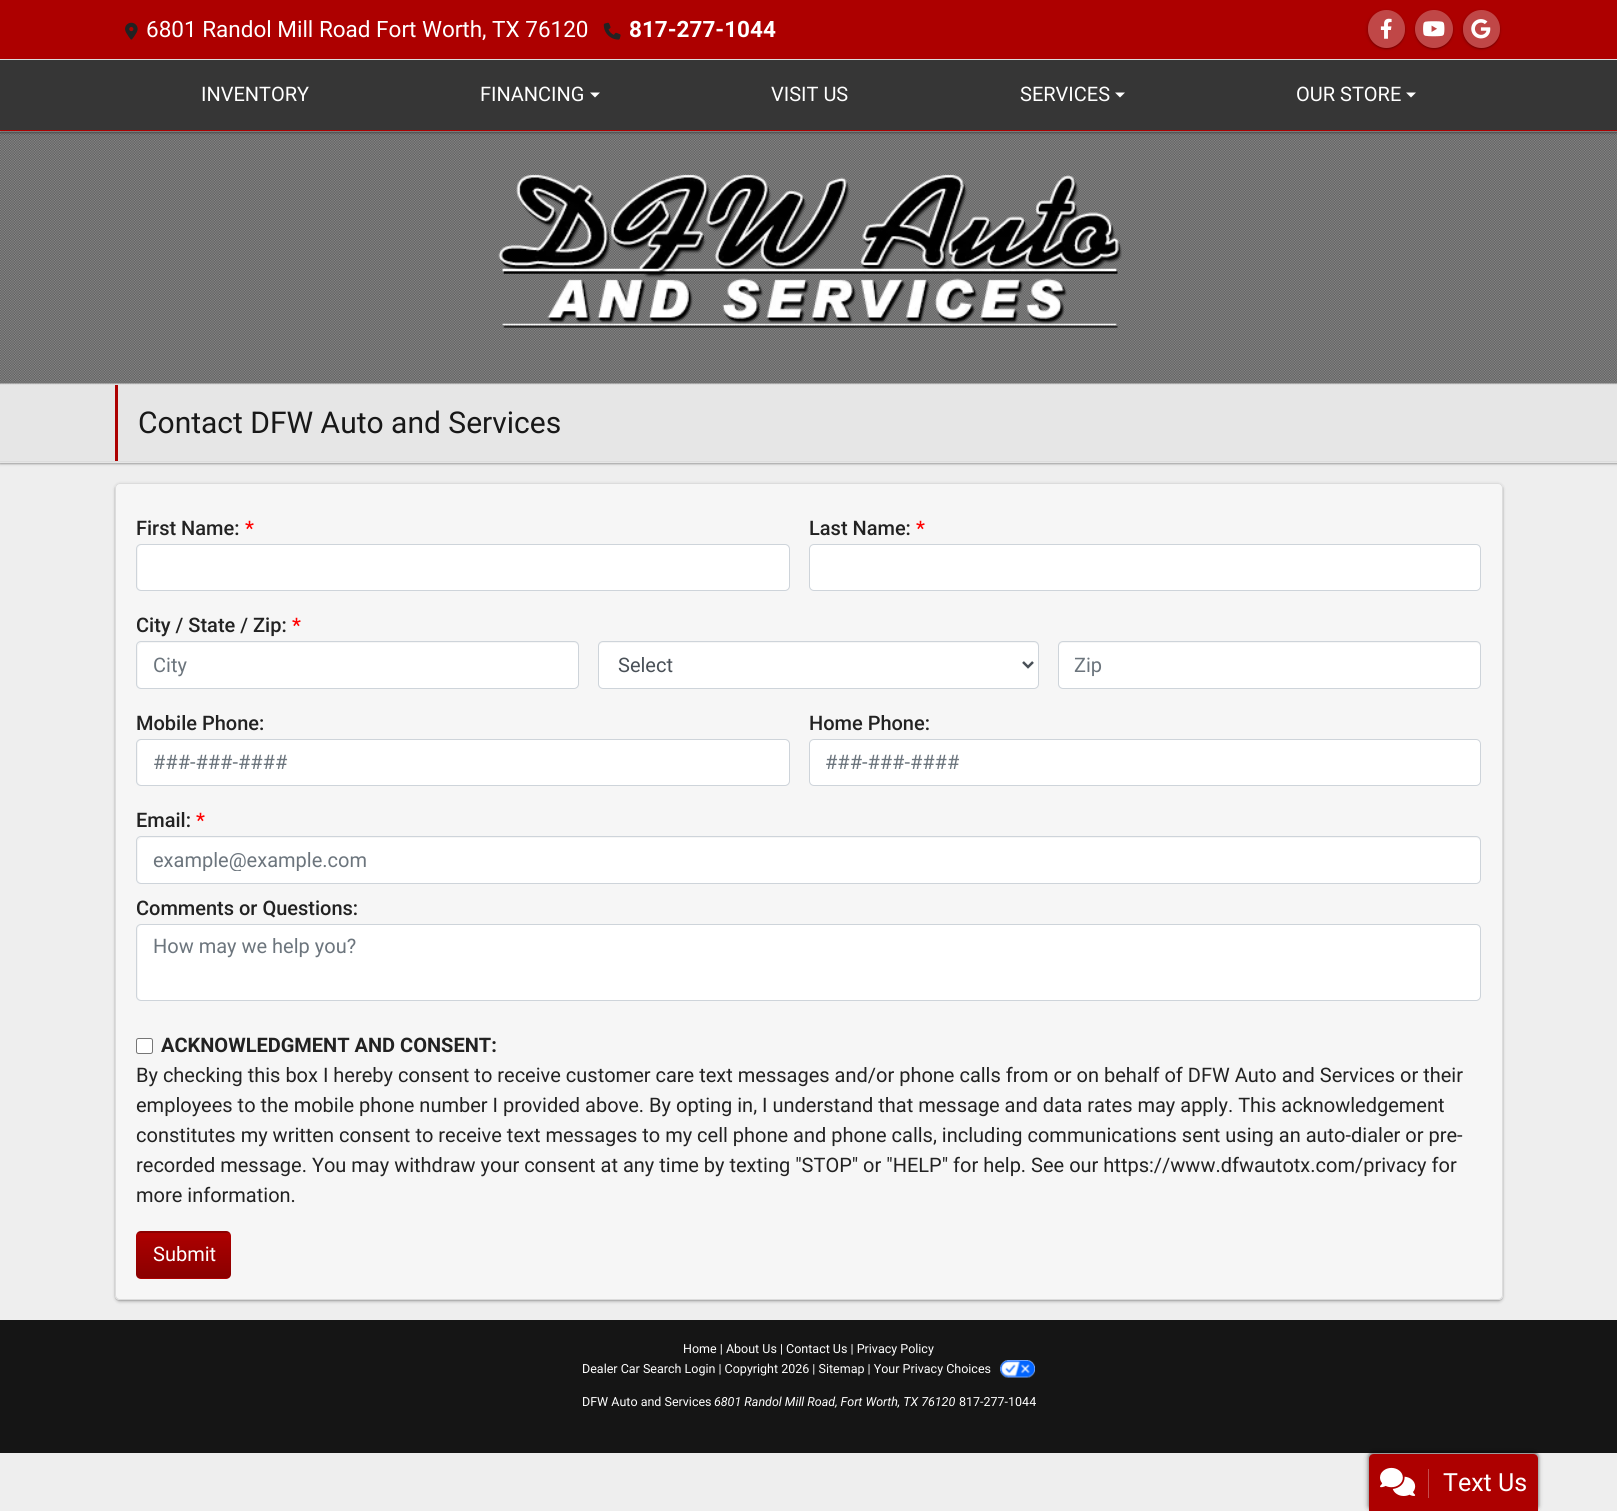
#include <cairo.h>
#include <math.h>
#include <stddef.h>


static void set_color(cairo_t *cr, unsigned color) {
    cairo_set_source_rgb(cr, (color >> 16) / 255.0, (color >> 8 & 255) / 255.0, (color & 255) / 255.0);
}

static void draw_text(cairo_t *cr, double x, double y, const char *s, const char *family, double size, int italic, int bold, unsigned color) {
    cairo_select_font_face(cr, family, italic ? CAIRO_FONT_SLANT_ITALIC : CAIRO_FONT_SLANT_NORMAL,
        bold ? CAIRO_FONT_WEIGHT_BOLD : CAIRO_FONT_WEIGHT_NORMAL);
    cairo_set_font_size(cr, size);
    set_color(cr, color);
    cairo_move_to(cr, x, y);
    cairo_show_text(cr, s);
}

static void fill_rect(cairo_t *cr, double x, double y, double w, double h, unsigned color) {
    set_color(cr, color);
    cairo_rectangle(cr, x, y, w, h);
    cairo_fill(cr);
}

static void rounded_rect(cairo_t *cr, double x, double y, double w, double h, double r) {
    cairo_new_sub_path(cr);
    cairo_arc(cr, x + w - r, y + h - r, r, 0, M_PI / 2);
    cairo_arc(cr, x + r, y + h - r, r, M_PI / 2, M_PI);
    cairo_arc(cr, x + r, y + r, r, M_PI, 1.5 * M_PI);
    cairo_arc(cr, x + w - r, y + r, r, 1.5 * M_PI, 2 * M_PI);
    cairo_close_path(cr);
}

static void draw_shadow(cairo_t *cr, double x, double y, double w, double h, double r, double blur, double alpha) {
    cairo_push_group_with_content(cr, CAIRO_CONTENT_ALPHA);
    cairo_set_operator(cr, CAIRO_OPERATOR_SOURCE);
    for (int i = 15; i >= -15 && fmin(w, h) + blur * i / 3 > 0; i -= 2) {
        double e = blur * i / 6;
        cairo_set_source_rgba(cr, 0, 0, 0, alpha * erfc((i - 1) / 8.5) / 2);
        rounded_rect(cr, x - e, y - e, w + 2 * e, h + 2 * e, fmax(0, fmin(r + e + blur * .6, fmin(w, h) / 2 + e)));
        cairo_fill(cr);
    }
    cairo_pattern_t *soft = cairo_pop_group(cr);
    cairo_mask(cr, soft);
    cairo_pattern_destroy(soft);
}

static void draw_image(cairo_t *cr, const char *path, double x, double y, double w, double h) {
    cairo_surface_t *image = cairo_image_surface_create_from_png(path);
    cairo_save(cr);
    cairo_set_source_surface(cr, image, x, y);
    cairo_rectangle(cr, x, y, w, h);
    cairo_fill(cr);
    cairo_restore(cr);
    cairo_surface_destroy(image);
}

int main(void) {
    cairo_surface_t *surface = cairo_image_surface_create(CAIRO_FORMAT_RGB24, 1617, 1511);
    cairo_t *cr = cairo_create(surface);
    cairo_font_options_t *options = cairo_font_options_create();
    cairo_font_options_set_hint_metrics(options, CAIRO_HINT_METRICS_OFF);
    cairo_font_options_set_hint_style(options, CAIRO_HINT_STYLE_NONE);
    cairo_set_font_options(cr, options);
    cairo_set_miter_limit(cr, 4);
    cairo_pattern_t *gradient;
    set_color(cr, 0xEEEEEE);
    cairo_paint(cr);
    draw_image(cr, "assets/img6.png", 0, 131, 1617, 253);
    set_color(cr, 0x000000);
    draw_shadow(cr, 0, 1, 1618, 132, 0, 0.5, 0.2);
    draw_shadow(cr, -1, 0, 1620, 134, 0, 1, 0.1);
    fill_rect(cr, 0, 0, 1617, 59, 0xAD0000);
    draw_image(cr, "assets/img1.png", 125, 22, 13, 18);
    draw_text(cr, 146, 37, "6801 Randol Mill Road Fort Worth, TX 76120", "Roboto", 22.5, 0, 0, 0xFFFFFF);
    draw_image(cr, "assets/img2.png", 603, 22, 18, 18);
    draw_text(cr, 629, 37, "817-277-1044", "Roboto", 22.5, 0, 1, 0xFFFFFF);
    cairo_save(cr);
    cairo_set_fill_rule(cr, CAIRO_FILL_RULE_EVEN_ODD);
    cairo_new_path(cr);
    cairo_move_to(cr, 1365, 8);
    cairo_line_to(cr, 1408, 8);
    cairo_line_to(cr, 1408, 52);
    cairo_line_to(cr, 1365, 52);
    cairo_close_path(cr);
    cairo_move_to(cr, 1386.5, 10);
    cairo_curve_to(cr, 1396.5, 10, 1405, 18.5, 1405, 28.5);
    cairo_line_to(cr, 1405, 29.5);
    cairo_curve_to(cr, 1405, 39.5, 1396.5, 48, 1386.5, 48);
    cairo_curve_to(cr, 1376.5, 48, 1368, 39.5, 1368, 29.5);
    cairo_line_to(cr, 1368, 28.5);
    cairo_curve_to(cr, 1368, 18.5, 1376.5, 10, 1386.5, 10);
    cairo_close_path(cr);
    cairo_clip(cr);
    set_color(cr, 0x000000);
    draw_shadow(cr, 1368, 11, 37, 38, 18.5, 0.5, 0.2);
    cairo_restore(cr);
    cairo_save(cr);
    cairo_set_fill_rule(cr, CAIRO_FILL_RULE_EVEN_ODD);
    cairo_new_path(cr);
    cairo_move_to(cr, 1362, 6);
    cairo_line_to(cr, 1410, 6);
    cairo_line_to(cr, 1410, 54);
    cairo_line_to(cr, 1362, 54);
    cairo_close_path(cr);
    cairo_move_to(cr, 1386.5, 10);
    cairo_curve_to(cr, 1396.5, 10, 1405, 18.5, 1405, 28.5);
    cairo_line_to(cr, 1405, 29.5);
    cairo_curve_to(cr, 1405, 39.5, 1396.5, 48, 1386.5, 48);
    cairo_curve_to(cr, 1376.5, 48, 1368, 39.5, 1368, 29.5);
    cairo_line_to(cr, 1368, 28.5);
    cairo_curve_to(cr, 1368, 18.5, 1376.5, 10, 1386.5, 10);
    cairo_close_path(cr);
    cairo_clip(cr);
    set_color(cr, 0x000000);
    draw_shadow(cr, 1366, 10, 40, 40, 20, 1, 0.1);
    cairo_restore(cr);
    cairo_set_source_rgba(cr, 0.933, 0.933, 0.933, 0.3);
    rounded_rect(cr, 1368, 10, 37, 38, 18.5);
    cairo_fill(cr);
    draw_image(cr, "assets/img3.png", 1380, 18, 12, 21);
    cairo_save(cr);
    cairo_set_fill_rule(cr, CAIRO_FILL_RULE_EVEN_ODD);
    cairo_new_path(cr);
    cairo_move_to(cr, 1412, 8);
    cairo_line_to(cr, 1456, 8);
    cairo_line_to(cr, 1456, 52);
    cairo_line_to(cr, 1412, 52);
    cairo_close_path(cr);
    cairo_move_to(cr, 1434, 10);
    cairo_curve_to(cr, 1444.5, 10, 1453, 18.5, 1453, 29);
    cairo_curve_to(cr, 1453, 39.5, 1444.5, 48, 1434, 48);
    cairo_curve_to(cr, 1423.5, 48, 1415, 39.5, 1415, 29);
    cairo_curve_to(cr, 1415, 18.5, 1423.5, 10, 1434, 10);
    cairo_close_path(cr);
    cairo_clip(cr);
    set_color(cr, 0x000000);
    draw_shadow(cr, 1415, 11, 38, 38, 19, 0.5, 0.2);
    cairo_restore(cr);
    cairo_save(cr);
    cairo_set_fill_rule(cr, CAIRO_FILL_RULE_EVEN_ODD);
    cairo_new_path(cr);
    cairo_move_to(cr, 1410, 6);
    cairo_line_to(cr, 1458, 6);
    cairo_line_to(cr, 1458, 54);
    cairo_line_to(cr, 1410, 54);
    cairo_close_path(cr);
    cairo_move_to(cr, 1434, 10);
    cairo_curve_to(cr, 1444.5, 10, 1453, 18.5, 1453, 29);
    cairo_curve_to(cr, 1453, 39.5, 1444.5, 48, 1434, 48);
    cairo_curve_to(cr, 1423.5, 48, 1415, 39.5, 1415, 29);
    cairo_curve_to(cr, 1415, 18.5, 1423.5, 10, 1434, 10);
    cairo_close_path(cr);
    cairo_clip(cr);
    set_color(cr, 0x000000);
    draw_shadow(cr, 1414, 10, 40, 40, 20, 1, 0.1);
    cairo_restore(cr);
    cairo_arc(cr, 1434, 29, 19, 0, 2 * M_PI);
    cairo_fill(cr);
    draw_image(cr, "assets/img4.png", 1423, 21, 22, 16);
    cairo_save(cr);
    cairo_set_fill_rule(cr, CAIRO_FILL_RULE_EVEN_ODD);
    cairo_new_path(cr);
    cairo_move_to(cr, 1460, 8);
    cairo_line_to(cr, 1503, 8);
    cairo_line_to(cr, 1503, 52);
    cairo_line_to(cr, 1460, 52);
    cairo_close_path(cr);
    cairo_move_to(cr, 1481.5, 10);
    cairo_curve_to(cr, 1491.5, 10, 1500, 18.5, 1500, 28.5);
    cairo_line_to(cr, 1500, 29.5);
    cairo_curve_to(cr, 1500, 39.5, 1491.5, 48, 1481.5, 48);
    cairo_curve_to(cr, 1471.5, 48, 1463, 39.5, 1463, 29.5);
    cairo_line_to(cr, 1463, 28.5);
    cairo_curve_to(cr, 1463, 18.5, 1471.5, 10, 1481.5, 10);
    cairo_close_path(cr);
    cairo_clip(cr);
    set_color(cr, 0x000000);
    draw_shadow(cr, 1463, 11, 37, 38, 18.5, 0.5, 0.2);
    cairo_restore(cr);
    cairo_save(cr);
    cairo_set_fill_rule(cr, CAIRO_FILL_RULE_EVEN_ODD);
    cairo_new_path(cr);
    cairo_move_to(cr, 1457, 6);
    cairo_line_to(cr, 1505, 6);
    cairo_line_to(cr, 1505, 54);
    cairo_line_to(cr, 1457, 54);
    cairo_close_path(cr);
    cairo_move_to(cr, 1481.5, 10);
    cairo_curve_to(cr, 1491.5, 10, 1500, 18.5, 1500, 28.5);
    cairo_line_to(cr, 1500, 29.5);
    cairo_curve_to(cr, 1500, 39.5, 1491.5, 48, 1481.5, 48);
    cairo_curve_to(cr, 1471.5, 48, 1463, 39.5, 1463, 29.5);
    cairo_line_to(cr, 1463, 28.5);
    cairo_curve_to(cr, 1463, 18.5, 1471.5, 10, 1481.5, 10);
    cairo_close_path(cr);
    cairo_clip(cr);
    set_color(cr, 0x000000);
    draw_shadow(cr, 1461, 10, 40, 40, 20, 1, 0.1);
    cairo_restore(cr);
    rounded_rect(cr, 1463, 10, 37, 38, 18.5);
    cairo_fill(cr);
    draw_image(cr, "assets/img5.png", 1471, 19, 20, 20);
    fill_rect(cr, 0, 60, 1617, 70, 0x363636);
    fill_rect(cr, 0, 59, 1617, 1, 0xDCDCDC);
    fill_rect(cr, 0, 130, 1617, 1, 0xAD0000);
    draw_text(cr, 201, 101, "INVENTORY", "Roboto", 20, 0, 0, 0xFFFFFF);
    draw_text(cr, 480, 101, "FINANCING", "Roboto", 20, 0, 0, 0xFFFFFF);
    cairo_new_path(cr);
    cairo_move_to(cr, 590, 92.5);
    cairo_line_to(cr, 600, 92.5);
    cairo_line_to(cr, 595, 97.5);
    cairo_close_path(cr);
    cairo_fill(cr);
    draw_text(cr, 771, 101, "VISIT US", "Roboto", 20, 0, 0, 0xFFFFFF);
    draw_text(cr, 1020, 101, "SERVICES", "Roboto", 20, 0, 0, 0xFFFFFF);
    cairo_new_path(cr);
    cairo_move_to(cr, 1115, 92.5);
    cairo_line_to(cr, 1125, 92.5);
    cairo_line_to(cr, 1120, 97.5);
    cairo_close_path(cr);
    cairo_fill(cr);
    draw_text(cr, 1296, 101, "OUR STORE", "Roboto", 20, 0, 0, 0xFFFFFF);
    cairo_new_path(cr);
    cairo_move_to(cr, 1406, 92.5);
    cairo_line_to(cr, 1416, 92.5);
    cairo_line_to(cr, 1411, 97.5);
    cairo_close_path(cr);
    cairo_fill(cr);
    draw_image(cr, "assets/img7.png", 498, 174, 624, 154);
    set_color(cr, 0x000000);
    draw_shadow(cr, 0, 385, 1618, 79, 0, 0.5, 0.2);
    draw_shadow(cr, -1, 384, 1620, 81, 0, 1, 0.1);
    fill_rect(cr, 0, 385, 1617, 78, 0xE6E6E6);
    fill_rect(cr, 0, 384, 1617, 1, 0xDCDCDC);
    fill_rect(cr, 0, 461, 1617, 1, 0xDCDCDC);
    fill_rect(cr, 115, 385, 3, 76, 0xAD0000);
    draw_text(cr, 138, 433, "Contact DFW Auto and Services", "Roboto", 30, 0, 0, 0x181818);
    cairo_save(cr);
    cairo_set_fill_rule(cr, CAIRO_FILL_RULE_EVEN_ODD);
    cairo_new_path(cr);
    cairo_move_to(cr, 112, 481);
    cairo_line_to(cr, 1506, 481);
    cairo_line_to(cr, 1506, 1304);
    cairo_line_to(cr, 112, 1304);
    cairo_close_path(cr);
    cairo_move_to(cr, 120, 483);
    cairo_line_to(cr, 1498, 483);
    cairo_curve_to(cr, 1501, 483, 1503, 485, 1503, 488);
    cairo_line_to(cr, 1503, 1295);
    cairo_curve_to(cr, 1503, 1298, 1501, 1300, 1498, 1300);
    cairo_line_to(cr, 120, 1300);
    cairo_curve_to(cr, 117, 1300, 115, 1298, 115, 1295);
    cairo_line_to(cr, 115, 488);
    cairo_curve_to(cr, 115, 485, 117, 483, 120, 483);
    cairo_close_path(cr);
    cairo_clip(cr);
    set_color(cr, 0x000000);
    draw_shadow(cr, 115, 484, 1388, 817, 5, 0.5, 0.2);
    cairo_restore(cr);
    cairo_save(cr);
    cairo_set_fill_rule(cr, CAIRO_FILL_RULE_EVEN_ODD);
    cairo_new_path(cr);
    cairo_move_to(cr, 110, 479);
    cairo_line_to(cr, 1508, 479);
    cairo_line_to(cr, 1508, 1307);
    cairo_line_to(cr, 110, 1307);
    cairo_close_path(cr);
    cairo_move_to(cr, 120, 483);
    cairo_line_to(cr, 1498, 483);
    cairo_curve_to(cr, 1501, 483, 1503, 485, 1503, 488);
    cairo_line_to(cr, 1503, 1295);
    cairo_curve_to(cr, 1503, 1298, 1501, 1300, 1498, 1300);
    cairo_line_to(cr, 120, 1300);
    cairo_curve_to(cr, 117, 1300, 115, 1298, 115, 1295);
    cairo_line_to(cr, 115, 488);
    cairo_curve_to(cr, 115, 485, 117, 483, 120, 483);
    cairo_close_path(cr);
    cairo_clip(cr);
    set_color(cr, 0x000000);
    draw_shadow(cr, 114, 483, 1390, 820, 6, 1, 0.1);
    cairo_restore(cr);
    cairo_set_source_rgba(cr, 0.984, 0.984, 0.984, 0.6);
    rounded_rect(cr, 115.5, 483.5, 1387, 816, 4.5);
    cairo_fill_preserve(cr);
    set_color(cr, 0xDCDCDC);
    cairo_set_line_width(cr, 1);
    cairo_stroke(cr);
    draw_text(cr, 136, 535, "First Name:", "Roboto Medium", 20, 0, 0, 0x222222);
    draw_text(cr, 245, 535, "*", "Roboto Medium", 20, 0, 0, 0xFF0000);
    set_color(cr, 0xFFFFFF);
    rounded_rect(cr, 138, 545, 651, 45, 4);
    cairo_fill(cr);
    rounded_rect(cr, 136.5, 544.5, 653, 46, 4.5);
    set_color(cr, 0xCED4DA);
    cairo_stroke(cr);
    draw_text(cr, 809, 535, "Last Name:", "Roboto Medium", 20, 0, 0, 0x222222);
    draw_text(cr, 916, 535, "*", "Roboto Medium", 20, 0, 0, 0xFF0000);
    set_color(cr, 0xFFFFFF);
    rounded_rect(cr, 809.5, 544.5, 671, 46, 4.5);
    cairo_fill_preserve(cr);
    set_color(cr, 0xCED4DA);
    cairo_stroke(cr);
    draw_text(cr, 136, 632, "City / State / Zip:", "Roboto Medium", 20, 0, 0, 0x222222);
    draw_text(cr, 292, 632, "*", "Roboto Medium", 20, 0, 0, 0xFF0000);
    set_color(cr, 0xFFFFFF);
    rounded_rect(cr, 138, 643, 440, 45, 4);
    cairo_fill(cr);
    rounded_rect(cr, 136.5, 641.5, 442, 47, 4.5);
    set_color(cr, 0xCED4DA);
    cairo_stroke(cr);
    draw_text(cr, 153, 672, "City", "Roboto", 20, 0, 0, 0x6C757D);
    set_color(cr, 0xFFFFFF);
    rounded_rect(cr, 599, 643, 439, 45, 4);
    cairo_fill(cr);
    rounded_rect(cr, 598.5, 641.5, 440, 47, 4.5);
    set_color(cr, 0xCED4DA);
    cairo_stroke(cr);
    cairo_new_path(cr);
    cairo_move_to(cr, 1023, 662);
    cairo_line_to(cr, 1028, 667);
    cairo_line_to(cr, 1033, 662);
    set_color(cr, 0x495057);
    cairo_set_line_width(cr, 2.5);
    cairo_stroke(cr);
    draw_text(cr, 618, 672, "Select", "Roboto", 20, 0, 0, 0x495057);
    set_color(cr, 0xFFFFFF);
    rounded_rect(cr, 1059, 643, 421, 45, 4);
    cairo_fill(cr);
    rounded_rect(cr, 1058.5, 641.5, 422, 47, 4.5);
    set_color(cr, 0xCED4DA);
    cairo_set_line_width(cr, 1);
    cairo_stroke(cr);
    draw_text(cr, 1074, 672, "Zip", "Roboto", 20, 0, 0, 0x6C757D);
    draw_text(cr, 136, 730, "Mobile Phone:", "Roboto Medium", 20, 0, 0, 0x222222);
    set_color(cr, 0xFFFFFF);
    rounded_rect(cr, 138, 740, 651, 45, 4);
    cairo_fill(cr);
    rounded_rect(cr, 136.5, 739.5, 653, 46, 4.5);
    set_color(cr, 0xCED4DA);
    cairo_stroke(cr);
    draw_text(cr, 153, 769, "###-###-####", "Roboto", 20, 0, 0, 0x6C757D);
    draw_text(cr, 809, 730, "Home Phone:", "Roboto Medium", 20, 0, 0, 0x222222);
    set_color(cr, 0xFFFFFF);
    rounded_rect(cr, 809.5, 739.5, 671, 46, 4.5);
    cairo_fill_preserve(cr);
    set_color(cr, 0xCED4DA);
    cairo_stroke(cr);
    draw_text(cr, 825, 769, "###-###-####", "Roboto", 20, 0, 0, 0x6C757D);
    draw_text(cr, 136, 827, "Email:", "Roboto Medium", 20, 0, 0, 0x222222);
    draw_text(cr, 196, 827, "*", "Roboto Medium", 20, 0, 0, 0xFF0000);
    set_color(cr, 0xFFFFFF);
    rounded_rect(cr, 138, 838, 1342, 45, 4);
    cairo_fill(cr);
    rounded_rect(cr, 136.5, 836.5, 1344, 47, 4.5);
    set_color(cr, 0xCED4DA);
    cairo_stroke(cr);
    cairo_save(cr);
    cairo_rectangle(cr, 153, 848, 1312, 23);
    cairo_clip(cr);
    draw_text(cr, 153, 867, "example@example.com", "Roboto", 20, 0, 0, 0x6C757D);
    cairo_restore(cr);
    draw_text(cr, 136, 915, "Comments or Questions:", "Roboto Medium", 20, 0, 0, 0x222222);
    set_color(cr, 0xFFFFFF);
    rounded_rect(cr, 138, 925, 1342, 75, 4);
    cairo_fill(cr);
    rounded_rect(cr, 136.5, 924.5, 1344, 76, 4.5);
    set_color(cr, 0xCED4DA);
    cairo_stroke(cr);
    draw_text(cr, 153, 953, "How may we help you?", "Roboto", 20, 0, 0, 0x6C757D);
    set_color(cr, 0xFFFFFF);
    rounded_rect(cr, 136.5, 1038.5, 16, 15, 2);
    cairo_fill_preserve(cr);
    set_color(cr, 0x767676);
    cairo_stroke(cr);
    draw_text(cr, 161, 1052, "ACKNOWLEDGMENT AND CONSENT:", "Roboto", 20, 0, 1, 0x222222);
    draw_text(cr, 136, 1082, "By checking this box I hereby consent to receive customer care text messages and/or phone calls from or on behalf of DFW Auto and Services or their", "Roboto", 20, 0, 0, 0x222222);
    draw_text(cr, 136, 1112, "employees to the mobile phone number I provided above. By opting in, I understand that message and data rates may apply. This acknowledgement", "Roboto", 20, 0, 0, 0x222222);
    draw_text(cr, 136, 1142, "constitutes my written consent to receive text messages to my cell phone and phone calls, including communications sent using an auto-dialer or pre-", "Roboto", 20, 0, 0, 0x222222);
    draw_text(cr, 136, 1172, "recorded message. You may withdraw your consent at any time by texting \"STOP\" or \"HELP\" for help. See our https://www.dfwautotx.com/privacy for", "Roboto", 20, 0, 0, 0x222222);
    draw_text(cr, 136, 1202, "more information.", "Roboto", 20, 0, 0, 0x222222);
    set_color(cr, 0xAD0000);
    rounded_rect(cr, 136, 1231, 95, 48, 5);
    cairo_fill(cr);
    cairo_save(cr);
    rounded_rect(cr, 136, 1231, 95, 48, 5);
    cairo_clip(cr);
    gradient = cairo_pattern_create_linear(184, 1188, 184, 1233);
    cairo_pattern_add_color_stop_rgba(gradient, 0, 0, 0, 0, 0);
    cairo_pattern_add_color_stop_rgba(gradient, 1, 0, 0, 0, 0.2);
    cairo_set_source(cr, gradient);
    cairo_pattern_destroy(gradient);
    cairo_rectangle(cr, 136, 1231, 95, 2);
    cairo_fill(cr);
    gradient = cairo_pattern_create_linear(184, 1233, 184, 1278);
    cairo_pattern_add_color_stop_rgba(gradient, 0, 0, 0, 0, 0);
    cairo_pattern_add_color_stop_rgba(gradient, 1, 0, 0, 0, 0.2);
    cairo_set_source(cr, gradient);
    cairo_pattern_destroy(gradient);
    cairo_rectangle(cr, 136, 1238, 95, 40);
    cairo_fill(cr);
    cairo_restore(cr);
    draw_text(cr, 153, 1261, "Submit", "Roboto", 20, 0, 0, 0xFFFFFF);
    fill_rect(cr, 0, 1320, 1617, 133, 0x151515);
    draw_text(cr, 683, 1353, "Home | About Us | Contact Us | Privacy Policy", "Roboto", 12.5, 0, 0, 0xFFFFFF);
    draw_text(cr, 582, 1373, "Dealer Car Search Login | Copyright 2026 | Sitemap | Your Privacy Choices", "Roboto", 12.5, 0, 0, 0xFFFFFF);
    draw_image(cr, "assets/img8.png", 1000, 1360, 35, 18);
    draw_text(cr, 582, 1406, "DFW Auto and Services", "Roboto", 12.5, 0, 0, 0xFFFFFF);
    draw_text(cr, 714, 1406, "6801 Randol Mill Road, Fort Worth, TX 76120", "Roboto", 12.5, 1, 0, 0xFFFFFF);
    draw_text(cr, 959, 1406, "817-277-1044", "Roboto", 12.5, 0, 0, 0xFFFFFF);
    set_color(cr, 0x000000);
    draw_shadow(cr, 1368, 1451, 171, 60, 6, 1, 0.25);
    draw_shadow(cr, 1366, 1450, 174, 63, 8, 2, 0.15);
    set_color(cr, 0xAD0000);
    cairo_new_path(cr);
    cairo_move_to(cr, 1374, 1454);
    cairo_line_to(cr, 1533, 1454);
    cairo_curve_to(cr, 1536, 1454, 1538, 1456, 1538, 1459);
    cairo_line_to(cr, 1538, 1511);
    cairo_line_to(cr, 1369, 1511);
    cairo_line_to(cr, 1369, 1459);
    cairo_curve_to(cr, 1369, 1456, 1371, 1454, 1374, 1454);
    cairo_close_path(cr);
    cairo_fill(cr);
    fill_rect(cr, 1428, 1469, 1, 29, 0xC64D4D);
    draw_image(cr, "assets/img9.png", 1380, 1467, 36, 29);
    draw_text(cr, 1443, 1491, "Text Us", "Roboto", 25, 0, 0, 0xFFFFFF);
    cairo_surface_write_to_png(surface, "output.png");
    cairo_font_options_destroy(options);
    cairo_destroy(cr);
    cairo_surface_destroy(surface);
    return 0;
}
